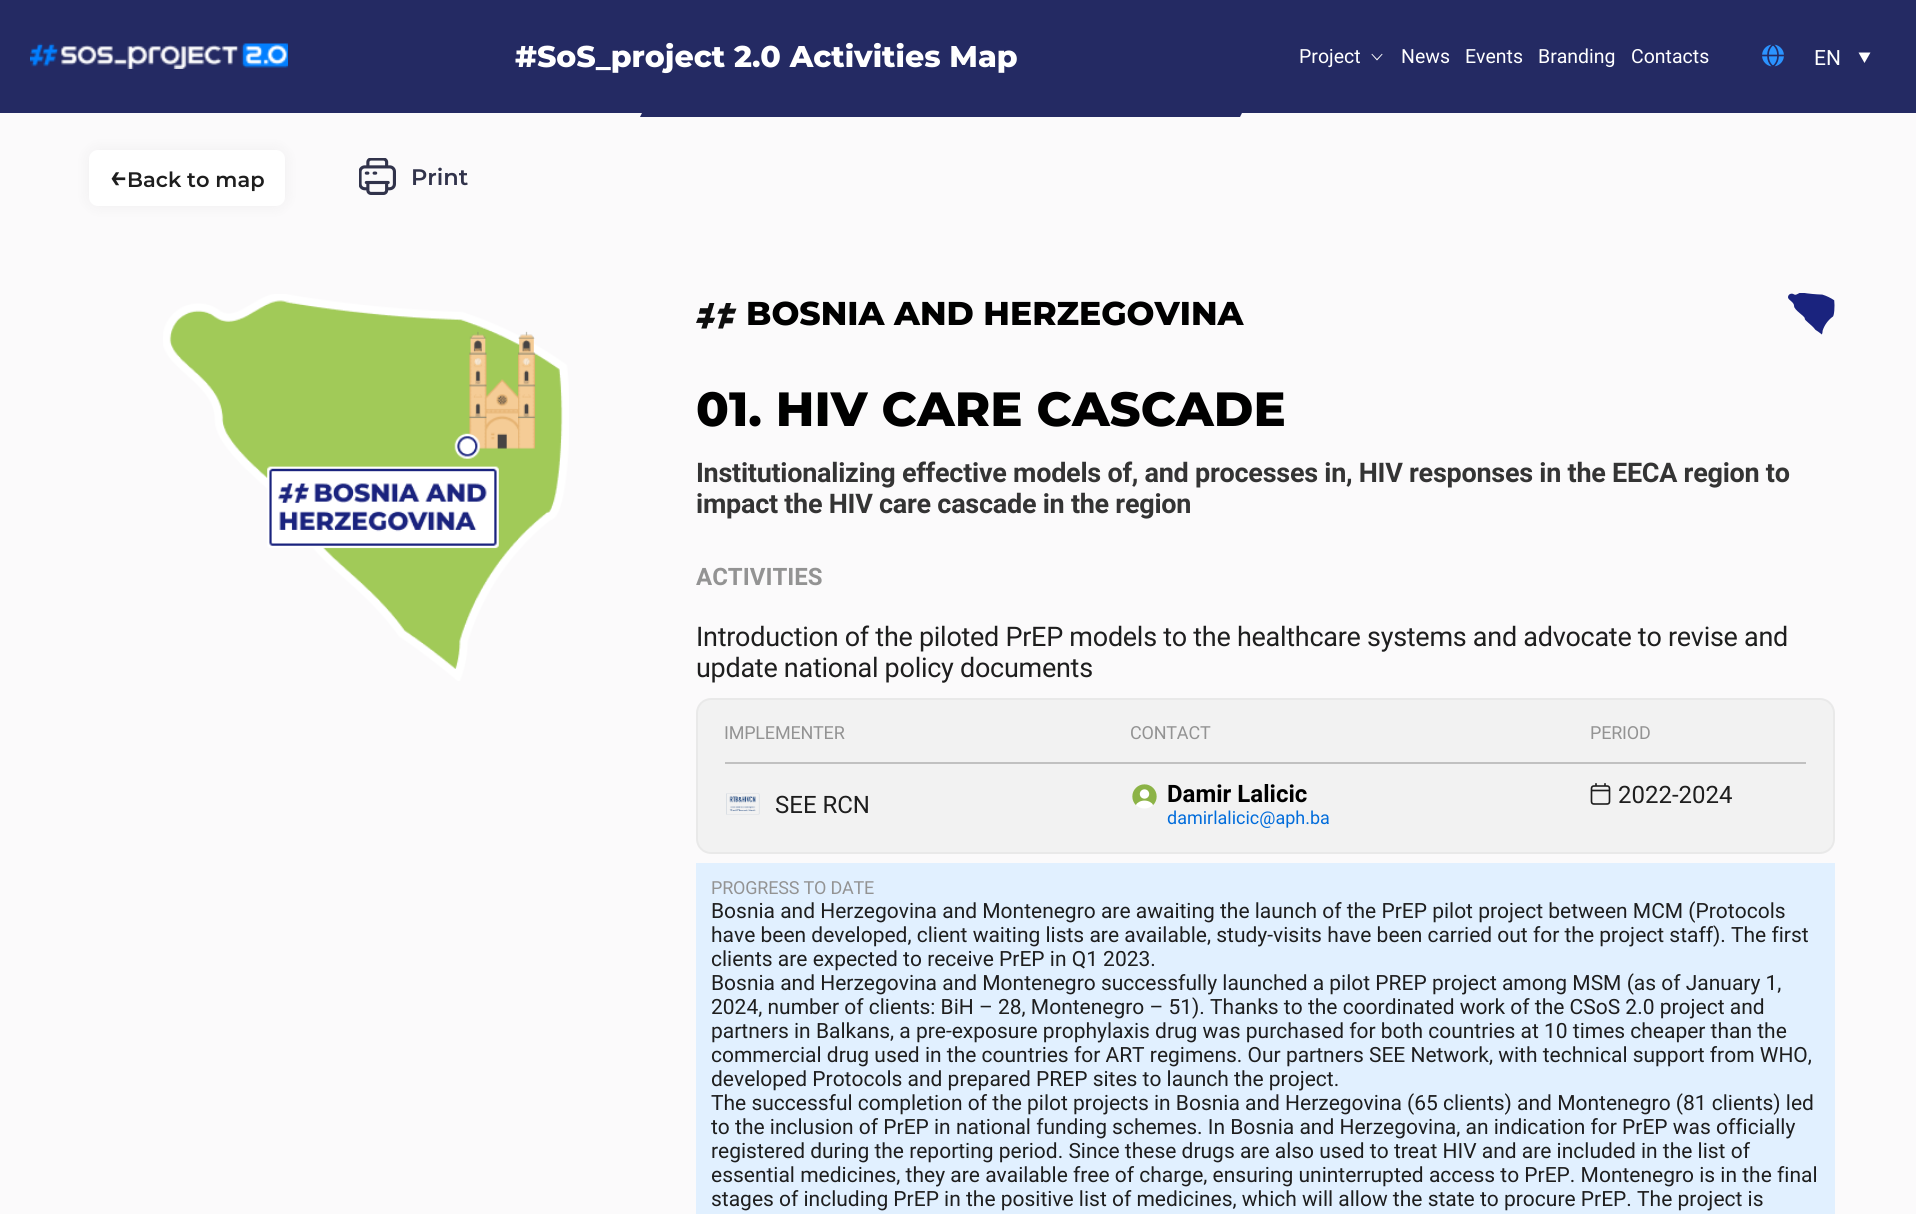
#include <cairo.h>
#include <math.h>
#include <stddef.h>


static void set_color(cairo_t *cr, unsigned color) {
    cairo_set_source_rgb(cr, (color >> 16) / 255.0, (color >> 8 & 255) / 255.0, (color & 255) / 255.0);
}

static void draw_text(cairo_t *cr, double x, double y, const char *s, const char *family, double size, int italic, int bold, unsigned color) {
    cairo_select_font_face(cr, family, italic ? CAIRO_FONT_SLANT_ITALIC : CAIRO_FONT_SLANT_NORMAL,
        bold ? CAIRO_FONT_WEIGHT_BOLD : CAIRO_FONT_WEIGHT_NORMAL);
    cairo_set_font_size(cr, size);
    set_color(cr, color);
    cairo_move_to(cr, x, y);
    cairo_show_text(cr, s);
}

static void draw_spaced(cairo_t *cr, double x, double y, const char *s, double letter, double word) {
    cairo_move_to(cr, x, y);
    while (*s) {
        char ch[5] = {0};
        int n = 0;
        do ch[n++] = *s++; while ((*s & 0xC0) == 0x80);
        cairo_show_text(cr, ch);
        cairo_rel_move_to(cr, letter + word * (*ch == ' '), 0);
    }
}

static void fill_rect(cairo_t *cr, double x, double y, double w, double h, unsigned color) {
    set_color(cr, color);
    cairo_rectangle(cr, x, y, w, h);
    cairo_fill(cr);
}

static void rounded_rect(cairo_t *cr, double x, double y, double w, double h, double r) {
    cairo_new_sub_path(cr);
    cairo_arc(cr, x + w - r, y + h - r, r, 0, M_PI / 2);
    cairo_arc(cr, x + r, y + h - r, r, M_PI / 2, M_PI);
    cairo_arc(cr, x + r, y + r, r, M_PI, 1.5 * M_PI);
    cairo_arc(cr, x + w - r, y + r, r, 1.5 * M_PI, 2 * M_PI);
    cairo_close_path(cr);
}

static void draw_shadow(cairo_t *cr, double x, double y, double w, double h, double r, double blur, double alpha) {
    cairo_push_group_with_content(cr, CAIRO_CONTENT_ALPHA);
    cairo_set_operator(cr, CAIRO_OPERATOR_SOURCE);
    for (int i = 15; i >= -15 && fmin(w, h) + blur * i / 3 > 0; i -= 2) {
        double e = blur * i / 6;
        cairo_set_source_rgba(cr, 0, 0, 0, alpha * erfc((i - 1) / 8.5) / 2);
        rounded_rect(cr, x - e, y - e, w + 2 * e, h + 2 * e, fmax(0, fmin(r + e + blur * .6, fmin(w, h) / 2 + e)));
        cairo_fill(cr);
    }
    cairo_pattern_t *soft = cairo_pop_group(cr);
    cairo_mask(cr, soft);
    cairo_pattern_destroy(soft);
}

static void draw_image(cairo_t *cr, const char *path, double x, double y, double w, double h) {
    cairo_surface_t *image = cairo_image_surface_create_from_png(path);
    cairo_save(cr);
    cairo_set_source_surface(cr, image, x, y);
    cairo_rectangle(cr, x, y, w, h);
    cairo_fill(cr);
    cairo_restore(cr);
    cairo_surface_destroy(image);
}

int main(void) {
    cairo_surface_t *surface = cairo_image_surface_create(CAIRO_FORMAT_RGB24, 1916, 1214);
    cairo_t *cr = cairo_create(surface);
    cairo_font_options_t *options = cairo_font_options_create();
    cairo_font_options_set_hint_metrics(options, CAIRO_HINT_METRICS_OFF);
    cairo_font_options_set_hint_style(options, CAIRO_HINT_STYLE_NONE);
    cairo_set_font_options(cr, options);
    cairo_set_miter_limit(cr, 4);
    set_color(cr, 0xFBFAFB);
    cairo_paint(cr);
    fill_rect(cr, 0, 0, 1916, 113, 0x242A63);
    draw_image(cr, "assets/img1.png", 30, 43, 258, 26);
    cairo_new_path(cr);
    cairo_move_to(cr, 677, 42);
    cairo_line_to(cr, 1277, 42);
    cairo_line_to(cr, 1240, 117);
    cairo_line_to(cr, 640, 117);
    cairo_close_path(cr);
    cairo_fill(cr);
    draw_text(cr, 515, 67, "#SoS_project 2.0 Activities Map", "Montserrat ExtraBold", 30, 0, 0, 0xFFFFFF);
    draw_text(cr, 1299, 63, "Project", "Roboto", 19.5, 0, 0, 0xFFFFFF);
    draw_image(cr, "assets/img2.png", 1371, 53, 12, 8);
    draw_text(cr, 1401, 63, "News", "Roboto", 19.5, 0, 0, 0xFFFFFF);
    draw_text(cr, 1465, 63, "Events", "Roboto", 19.5, 0, 0, 0xFFFFFF);
    draw_text(cr, 1538, 63, "Branding", "Roboto", 19.5, 0, 0, 0xFFFFFF);
    draw_text(cr, 1631, 63, "Contacts", "Roboto", 19.5, 0, 0, 0xFFFFFF);
    draw_image(cr, "assets/img3.png", 1762, 44, 22, 23);
    draw_text(cr, 1814, 65, "EN", "Roboto", 21, 0, 0, 0xFFFFFF);
    cairo_new_path(cr);
    cairo_move_to(cr, 1858.5, 52.5);
    cairo_line_to(cr, 1870.5, 52.5);
    cairo_line_to(cr, 1864.5, 63);
    cairo_close_path(cr);
    cairo_fill(cr);
    set_color(cr, 0x000000);
    draw_shadow(cr, 89, 150, 196, 56, 9, 7.5, 0.05);
    set_color(cr, 0xFFFFFF);
    rounded_rect(cr, 89, 150, 196, 56, 9);
    cairo_fill(cr);
    draw_text(cr, 109, 187, "←", "Montserrat SemiBold", 30, 0, 0, 0x1E1E1E);
    draw_text(cr, 127, 187, "Back to map", "Montserrat SemiBold", 21, 0, 0, 0x1E1E1E);
    draw_image(cr, "assets/img4.png", 359, 158, 37, 37);
    draw_text(cr, 411, 185, "Print", "Montserrat SemiBold", 22.5, 0, 0, 0x31334B);
    draw_image(cr, "assets/img5.png", 163, 294, 406, 387);
    draw_image(cr, "assets/img6.png", 696, 303, 41, 26);
    draw_text(cr, 746, 325, "BOSNIA AND HERZEGOVINA", "Montserrat ExtraBold", 33, 0, 0, 0x000000);
    draw_image(cr, "assets/img7.png", 1788, 293, 47, 42);
    draw_text(cr, 696, 426, "01. HIV CARE CASCADE", "Montserrat ExtraBold", 48, 0, 0, 0x000000);
    cairo_select_font_face(cr, "Roboto", CAIRO_FONT_SLANT_NORMAL, CAIRO_FONT_WEIGHT_BOLD);
    cairo_set_font_size(cr, 27);
    set_color(cr, 0x343434);
    draw_spaced(cr, 696, 482, "Institutionalizing effective models of, and processes in, HIV responses in the EECA region to", -0.27, 0);
    draw_spaced(cr, 696, 513, "impact the HIV care cascade in the region", -0.27, 0);
    draw_text(cr, 696, 585, "ACTIVITIES", "Roboto", 24, 0, 1, 0x939393);
    cairo_select_font_face(cr, "Roboto", CAIRO_FONT_SLANT_NORMAL, CAIRO_FONT_WEIGHT_NORMAL);
    cairo_set_font_size(cr, 27);
    set_color(cr, 0x1E1E1E);
    draw_spaced(cr, 696, 646, "Introduction of the piloted PrEP models to the healthcare systems and advocate to revise and", -0.27, 0);
    draw_spaced(cr, 696, 677, "update national policy documents", -0.27, 0);
    set_color(cr, 0xF2F2F2);
    rounded_rect(cr, 697, 699, 1137, 154, 14);
    cairo_fill_preserve(cr);
    set_color(cr, 0xE9E9E9);
    cairo_stroke(cr);
    fill_rect(cr, 725, 762, 1081, 2, 0xC1C1C1);
    cairo_set_font_size(cr, 18);
    set_color(cr, 0x939393);
    draw_spaced(cr, 724, 739, "IMPLEMENTER", -0.2, 0);
    draw_spaced(cr, 1130, 739, "CONTACT", -0.2, 0);
    draw_spaced(cr, 1590, 739, "PERIOD", -0.2, 0);
    draw_image(cr, "assets/img8.png", 726, 793, 34, 22);
    draw_text(cr, 775, 813, "SEE RCN", "Roboto", 24, 0, 0, 0x1E1E1E);
    draw_image(cr, "assets/img9.png", 1132, 784, 25, 25);
    draw_text(cr, 1167, 802, "Damir Lalicic", "Roboto", 24, 0, 1, 0x000000);
    draw_text(cr, 1167, 824, "damirlalicic@aph.ba", "Roboto", 18, 0, 0, 0x016CDB);
    draw_image(cr, "assets/img10.png", 1590, 783, 21, 22);
    draw_text(cr, 1618, 803, "2022-2024", "Roboto", 24, 0, 0, 0x1E1E1E);
    fill_rect(cr, 696, 863, 1139, 351, 0xE1F0FF);
    cairo_set_font_size(cr, 18);
    set_color(cr, 0x939393);
    draw_spaced(cr, 711, 894, "PROGRESS TO DATE", -0.2, 0);
    draw_text(cr, 711, 918, "Bosnia and Herzegovina and Montenegro are awaiting the launch of the PrEP pilot project between MCM (Protocols", "Roboto", 21, 0, 0, 0x1E1E1E);
    draw_text(cr, 711, 942, "have been developed, client waiting lists are available, study-visits have been carried out for the project staff). The first", "Roboto", 21, 0, 0, 0x1E1E1E);
    draw_text(cr, 711, 966, "clients are expected to receive PrEP in Q1 2023.", "Roboto", 21, 0, 0, 0x1E1E1E);
    draw_text(cr, 711, 990, "Bosnia and Herzegovina and Montenegro successfully launched a pilot PREP project among MSM (as of January 1,", "Roboto", 21, 0, 0, 0x1E1E1E);
    draw_text(cr, 711, 1014, "2024, number of clients: BiH – 28, Montenegro – 51). Thanks to the coordinated work of the CSoS 2.0 project and", "Roboto", 21, 0, 0, 0x1E1E1E);
    draw_text(cr, 711, 1038, "partners in Balkans, a pre-exposure prophylaxis drug was purchased for both countries at 10 times cheaper than the", "Roboto", 21, 0, 0, 0x1E1E1E);
    draw_text(cr, 711, 1062, "commercial drug used in the countries for ART regimens. Our partners SEE Network, with technical support from WHO,", "Roboto", 21, 0, 0, 0x1E1E1E);
    draw_text(cr, 711, 1086, "developed Protocols and prepared PREP sites to launch the project.", "Roboto", 21, 0, 0, 0x1E1E1E);
    draw_text(cr, 711, 1110, "The successful completion of the pilot projects in Bosnia and Herzegovina (65 clients) and Montenegro (81 clients) led", "Roboto", 21, 0, 0, 0x1E1E1E);
    draw_text(cr, 711, 1134, "to the inclusion of PrEP in national funding schemes. In Bosnia and Herzegovina, an indication for PrEP was officially", "Roboto", 21, 0, 0, 0x1E1E1E);
    draw_text(cr, 711, 1158, "registered during the reporting period. Since these drugs are also used to treat HIV and are included in the list of", "Roboto", 21, 0, 0, 0x1E1E1E);
    draw_text(cr, 711, 1182, "essential medicines, they are available free of charge, ensuring uninterrupted access to PrEP. Montenegro is in the final", "Roboto", 21, 0, 0, 0x1E1E1E);
    draw_text(cr, 711, 1206, "stages of including PrEP in the positive list of medicines, which will allow the state to procure PrEP. The project is", "Roboto", 21, 0, 0, 0x1E1E1E);
    cairo_surface_write_to_png(surface, "output.png");
    cairo_font_options_destroy(options);
    cairo_destroy(cr);
    cairo_surface_destroy(surface);
    return 0;
}
